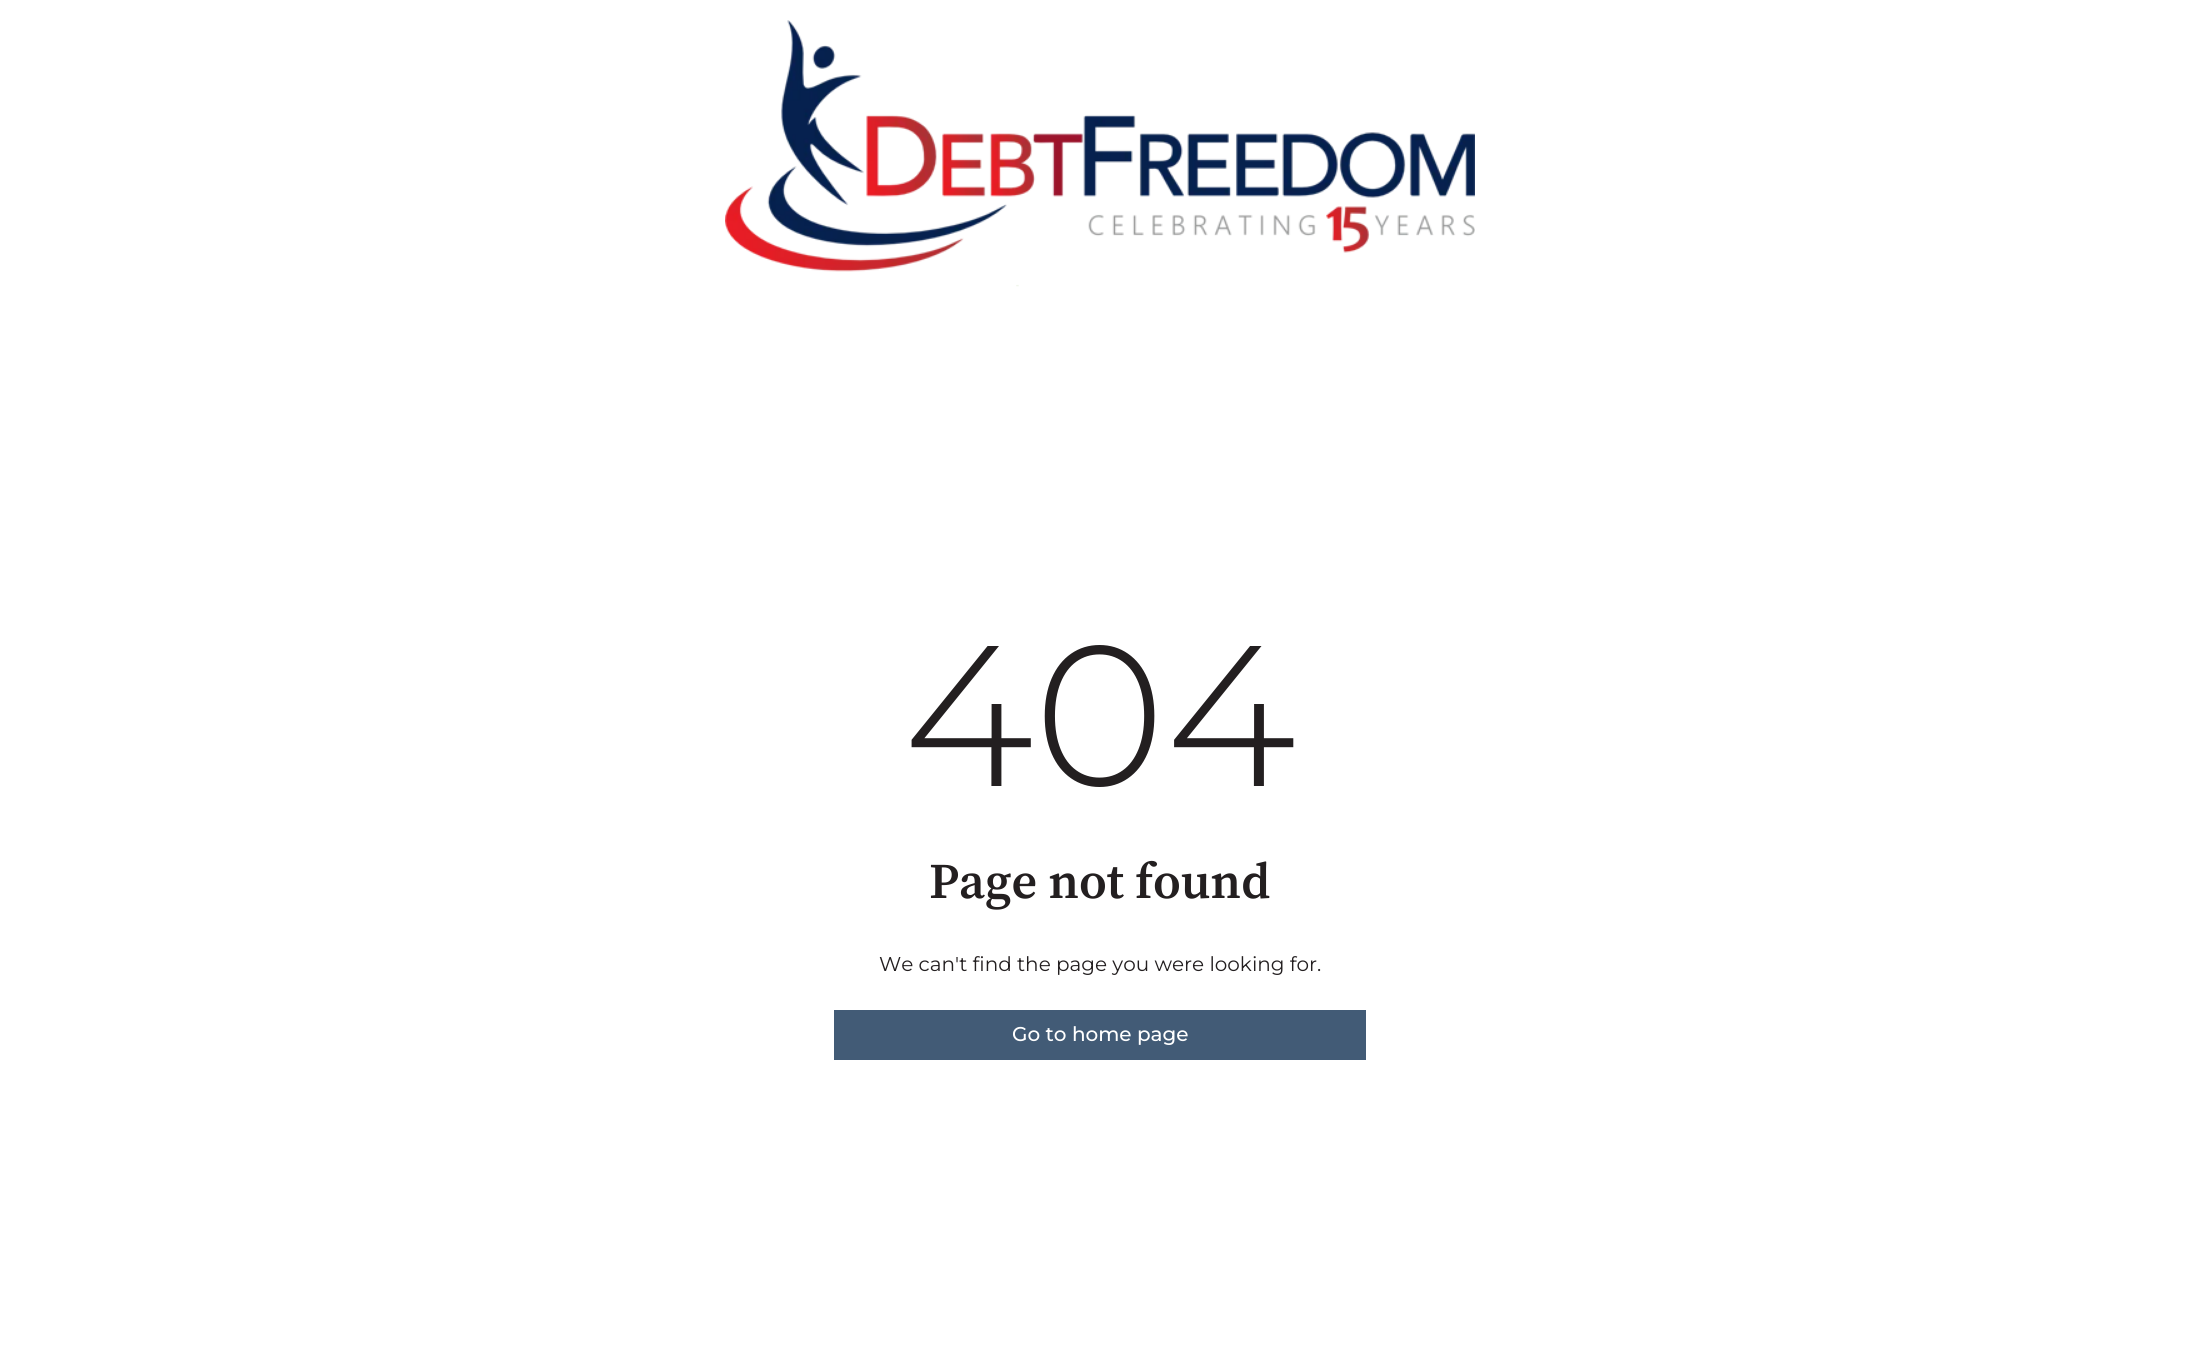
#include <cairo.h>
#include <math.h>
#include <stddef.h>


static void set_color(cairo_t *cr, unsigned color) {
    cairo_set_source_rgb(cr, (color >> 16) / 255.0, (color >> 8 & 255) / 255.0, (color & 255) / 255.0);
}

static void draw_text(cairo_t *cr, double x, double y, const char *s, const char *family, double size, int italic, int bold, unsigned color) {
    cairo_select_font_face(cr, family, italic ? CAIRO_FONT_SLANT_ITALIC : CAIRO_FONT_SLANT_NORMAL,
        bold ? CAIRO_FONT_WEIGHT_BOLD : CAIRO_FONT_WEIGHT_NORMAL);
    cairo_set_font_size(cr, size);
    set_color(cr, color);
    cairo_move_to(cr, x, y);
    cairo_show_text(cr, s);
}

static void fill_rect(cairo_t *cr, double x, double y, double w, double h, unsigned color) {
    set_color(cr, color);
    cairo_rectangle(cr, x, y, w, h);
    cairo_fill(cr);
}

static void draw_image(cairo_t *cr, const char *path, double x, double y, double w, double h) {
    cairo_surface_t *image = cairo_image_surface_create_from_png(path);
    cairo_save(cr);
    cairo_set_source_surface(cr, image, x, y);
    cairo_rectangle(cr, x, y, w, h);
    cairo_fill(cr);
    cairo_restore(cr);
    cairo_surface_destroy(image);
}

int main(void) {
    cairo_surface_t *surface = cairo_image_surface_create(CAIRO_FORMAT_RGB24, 2200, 1368);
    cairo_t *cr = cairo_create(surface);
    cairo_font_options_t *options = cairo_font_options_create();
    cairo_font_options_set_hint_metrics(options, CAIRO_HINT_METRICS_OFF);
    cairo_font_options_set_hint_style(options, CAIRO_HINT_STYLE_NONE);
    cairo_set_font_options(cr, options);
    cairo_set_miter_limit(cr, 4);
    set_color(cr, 0xFFFFFF);
    cairo_paint(cr);
    draw_image(cr, "assets/img1.png", 725, 20, 750, 267);
    draw_text(cr, 903, 786, "404", "Montserrat Light", 200, 0, 0, 0x231F20);
    draw_text(cr, 929, 898, "Page not found", "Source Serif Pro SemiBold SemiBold", 50, 0, 0, 0x231F20);
    draw_text(cr, 879, 971, "We can't find the page you were looking for.", "Montserrat", 20, 0, 0, 0x231F20);
    fill_rect(cr, 834, 1010, 532, 50, 0x425B76);
    draw_text(cr, 1012, 1041, "Go to home page", "Montserrat Medium", 20, 0, 0, 0xFFFFFF);
    cairo_surface_write_to_png(surface, "output.png");
    cairo_font_options_destroy(options);
    cairo_destroy(cr);
    cairo_surface_destroy(surface);
    return 0;
}
